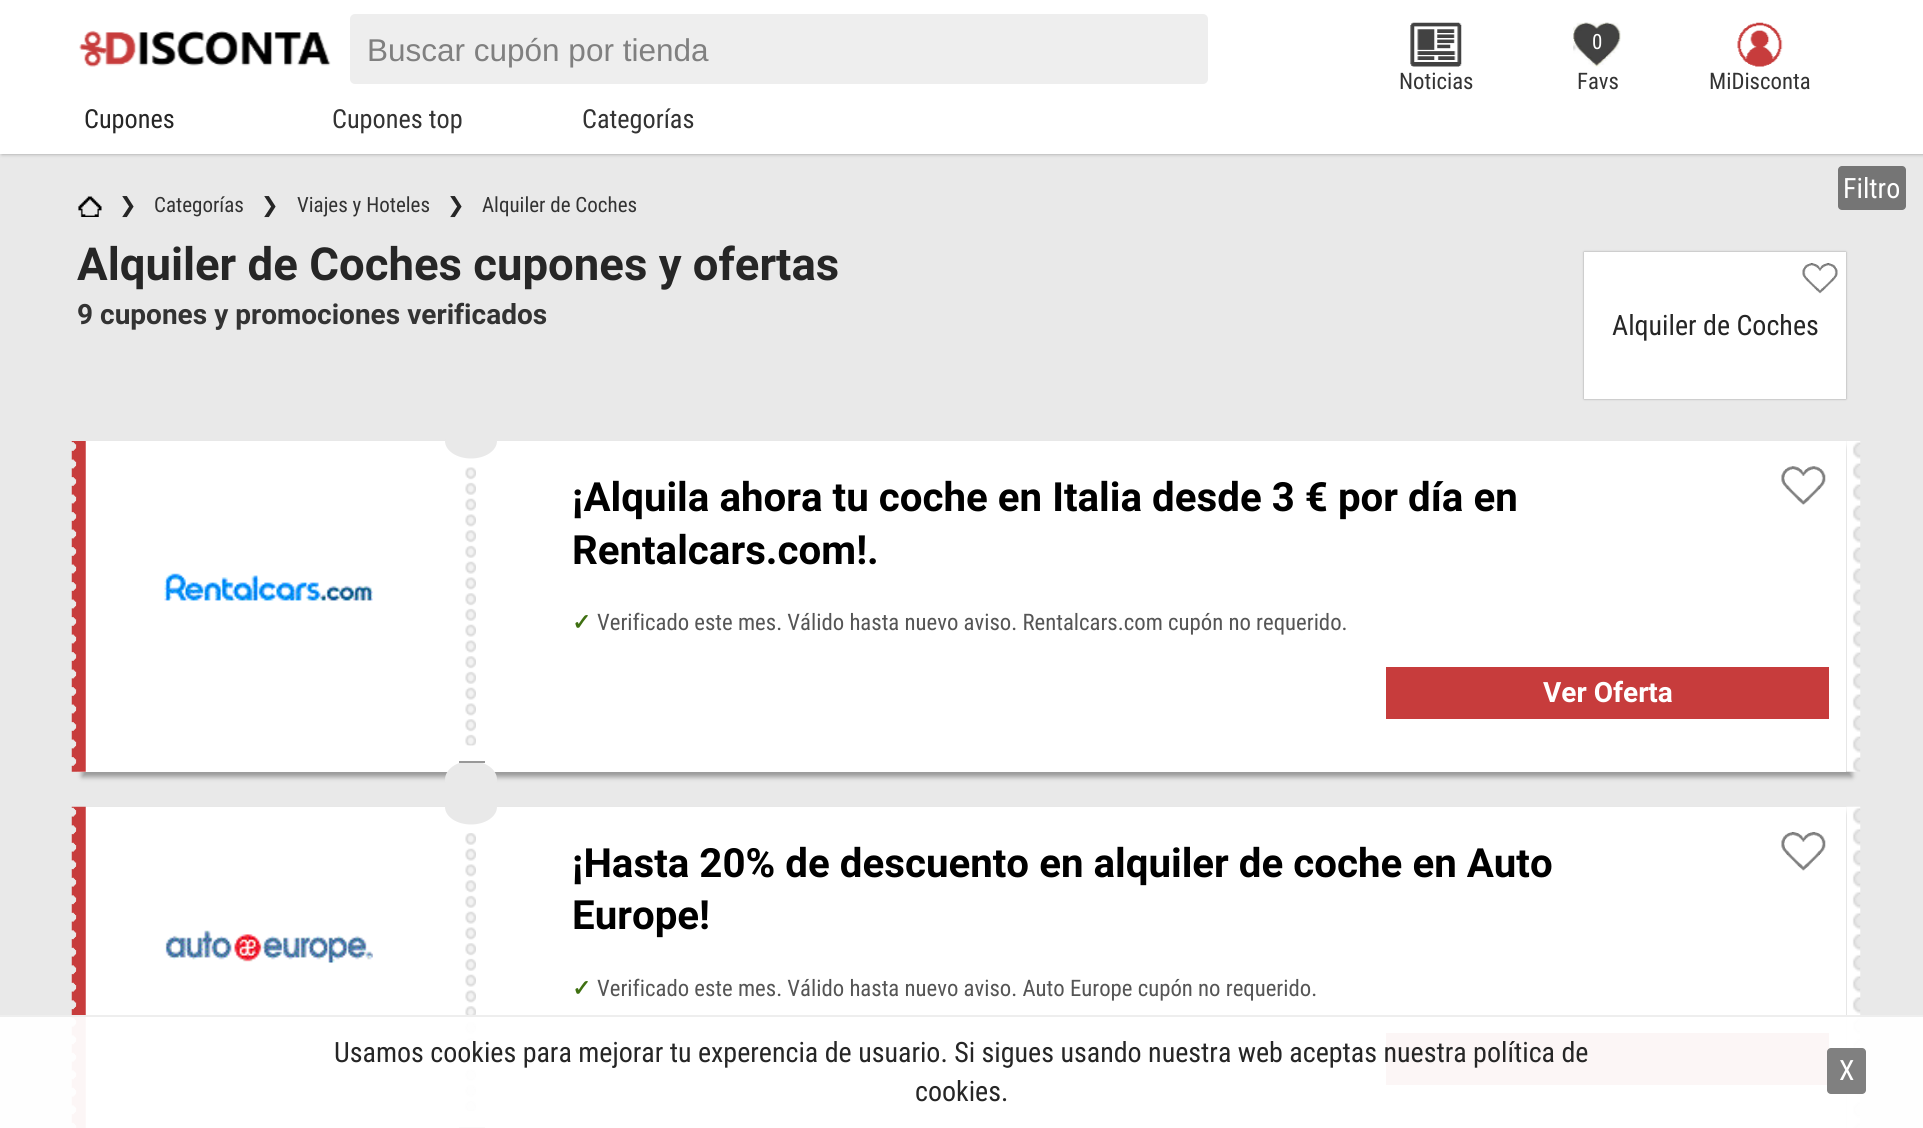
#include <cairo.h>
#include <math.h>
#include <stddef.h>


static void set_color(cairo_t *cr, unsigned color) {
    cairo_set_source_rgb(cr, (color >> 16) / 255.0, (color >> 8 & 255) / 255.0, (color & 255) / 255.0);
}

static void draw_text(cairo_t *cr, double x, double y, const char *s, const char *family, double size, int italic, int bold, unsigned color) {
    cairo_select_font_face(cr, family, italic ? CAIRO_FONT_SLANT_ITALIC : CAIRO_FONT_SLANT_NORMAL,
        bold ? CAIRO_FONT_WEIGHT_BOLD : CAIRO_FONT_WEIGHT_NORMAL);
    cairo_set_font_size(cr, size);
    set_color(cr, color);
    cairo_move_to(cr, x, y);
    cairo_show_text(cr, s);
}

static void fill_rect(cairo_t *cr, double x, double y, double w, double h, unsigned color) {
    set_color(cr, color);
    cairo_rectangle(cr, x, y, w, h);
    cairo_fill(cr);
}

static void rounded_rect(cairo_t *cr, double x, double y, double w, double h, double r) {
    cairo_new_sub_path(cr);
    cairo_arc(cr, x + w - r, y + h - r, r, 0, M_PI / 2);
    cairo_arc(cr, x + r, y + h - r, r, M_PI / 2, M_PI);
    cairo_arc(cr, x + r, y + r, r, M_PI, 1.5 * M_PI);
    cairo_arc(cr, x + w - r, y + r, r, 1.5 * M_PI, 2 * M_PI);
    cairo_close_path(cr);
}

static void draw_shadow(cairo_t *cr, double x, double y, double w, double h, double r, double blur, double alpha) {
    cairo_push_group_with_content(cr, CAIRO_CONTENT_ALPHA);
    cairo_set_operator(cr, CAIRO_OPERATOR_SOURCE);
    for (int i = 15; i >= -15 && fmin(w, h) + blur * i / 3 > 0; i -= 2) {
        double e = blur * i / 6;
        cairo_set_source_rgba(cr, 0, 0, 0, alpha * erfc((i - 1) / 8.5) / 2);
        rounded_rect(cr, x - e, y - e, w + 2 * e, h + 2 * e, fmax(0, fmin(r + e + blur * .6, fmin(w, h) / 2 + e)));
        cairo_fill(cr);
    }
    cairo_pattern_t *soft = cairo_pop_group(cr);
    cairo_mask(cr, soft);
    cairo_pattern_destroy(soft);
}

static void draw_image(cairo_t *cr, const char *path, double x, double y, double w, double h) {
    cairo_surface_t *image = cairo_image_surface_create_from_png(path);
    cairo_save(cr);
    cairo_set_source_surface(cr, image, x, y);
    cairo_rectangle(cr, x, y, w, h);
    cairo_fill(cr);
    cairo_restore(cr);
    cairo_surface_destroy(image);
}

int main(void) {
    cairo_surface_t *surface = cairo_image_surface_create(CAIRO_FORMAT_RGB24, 1923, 1128);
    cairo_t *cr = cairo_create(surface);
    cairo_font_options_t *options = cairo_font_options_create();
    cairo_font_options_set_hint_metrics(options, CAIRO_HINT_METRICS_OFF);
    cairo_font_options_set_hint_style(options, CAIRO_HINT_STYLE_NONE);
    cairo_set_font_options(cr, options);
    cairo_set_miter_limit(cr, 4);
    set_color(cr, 0xE9E9E9);
    cairo_paint(cr);
    set_color(cr, 0x999999);
    draw_shadow(cr, 2, 0, 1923, 154, 0, 2, 1);
    fill_rect(cr, 0, 0, 1923, 154, 0xFFFFFF);
    draw_image(cr, "assets/img1.png", 79, 30, 252, 37);
    set_color(cr, 0xEEEEEE);
    rounded_rect(cr, 350, 14, 858, 70, 5);
    cairo_fill(cr);
    draw_text(cr, 367, 61, "Buscar cupón por tienda", "Liberation Sans", 31.5, 0, 0, 0x808080);
    draw_image(cr, "assets/img2.png", 1410, 22, 52, 45);
    draw_text(cr, 1399, 89, "Noticias", "Roboto Condensed", 22.75, 0, 0, 0x333333);
    draw_image(cr, "assets/img3.png", 1573, 22, 48, 45);
    draw_text(cr, 1592, 49, "0", "Roboto Condensed", 21, 0, 0, 0xFFFFFF);
    draw_text(cr, 1577, 89, "Favs", "Roboto Condensed", 22.75, 0, 0, 0x333333);
    draw_image(cr, "assets/img4.png", 1737, 22, 46, 45);
    draw_text(cr, 1709, 89, "MiDisconta", "Roboto Condensed", 22.75, 0, 0, 0x333333);
    draw_text(cr, 84, 128, "Cupones", "Roboto Condensed", 26.25, 0, 0, 0x262626);
    draw_text(cr, 332, 128, "Cupones top", "Roboto Condensed", 26.25, 0, 0, 0x333333);
    draw_text(cr, 582, 128, "Categorías", "Roboto Condensed", 26.25, 0, 0, 0x333333);
    set_color(cr, 0x999999);
    draw_shadow(cr, 82, 812, 1770, 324, 0, 2.5, 1);
    fill_rect(cr, 85, 807, 1761, 321, 0xFFFFFF);
    draw_image(cr, "assets/img12.png", 71, 806, 15, 322);
    fill_rect(cr, 459, 1127, 26, 1, 0x999999);
    draw_image(cr, "assets/img15.png", 465, 833, 11, 279);
    fill_rect(cr, 1386, 1033, 443, 52, 0xC73C3C);
    draw_image(cr, "assets/img16.png", 1846, 806, 15, 322);
    cairo_set_source_rgba(cr, 1, 1, 1, 0.95);
    cairo_rectangle(cr, 0, 1017, 1923, 111);
    cairo_fill(cr);
    fill_rect(cr, 0, 1015, 1923, 2, 0xEEEEEE);
    draw_text(cr, 334, 1062, "Usamos cookies para mejorar tu experencia de usuario. Si sigues usando nuestra web aceptas nuestra política de", "Roboto Condensed", 28, 0, 0, 0x262626);
    draw_text(cr, 915, 1101, "cookies.", "Roboto Condensed", 28, 0, 0, 0x262626);
    set_color(cr, 0x808080);
    rounded_rect(cr, 1827, 1048, 39, 46, 4);
    cairo_fill(cr);
    draw_text(cr, 1839, 1080, "X", "Roboto Condensed", 28, 0, 0, 0xFFFFFF);
    set_color(cr, 0x757575);
    rounded_rect(cr, 1838, 166, 68, 44, 4);
    cairo_fill(cr);
    draw_text(cr, 1843, 198, "Filtro", "Roboto Condensed", 28, 0, 0, 0xFFFFFF);
    draw_image(cr, "assets/img5.png", 78, 196, 24, 21);
    draw_text(cr, 119, 212, "❯", "DejaVu Sans", 21, 0, 0, 0x262626);
    draw_text(cr, 154, 212, "Categorías", "Roboto Condensed", 21, 0, 0, 0x333333);
    draw_text(cr, 261, 212, "❯", "DejaVu Sans", 21, 0, 0, 0x262626);
    draw_text(cr, 297, 212, "Viajes y Hoteles", "Roboto Condensed", 21, 0, 0, 0x333333);
    draw_text(cr, 447, 212, "❯", "DejaVu Sans", 21, 0, 0, 0x262626);
    draw_text(cr, 482, 212, "Alquiler de Coches", "Roboto Condensed", 21, 0, 0, 0x333333);
    draw_text(cr, 77, 280, "Alquiler de Coches cupones y ofertas", "Roboto", 45.5, 0, 1, 0x262626);
    draw_text(cr, 77, 324, "9 cupones y promociones verificados", "Roboto", 28, 0, 1, 0x333333);
    set_color(cr, 0x999999);
    draw_shadow(cr, 1584, 252, 262, 147, 0, 1, 1);
    fill_rect(cr, 1584, 252, 262, 147, 0xFFFFFF);
    draw_image(cr, "assets/img6.png", 1802, 263, 36, 31);
    draw_text(cr, 1612, 335, "Alquiler de Coches", "Roboto Condensed", 28, 0, 0, 0x262626);
    set_color(cr, 0x999999);
    draw_shadow(cr, 82, 446, 1770, 331, 0, 2.5, 1);
    fill_rect(cr, 77, 441, 1769, 331, 0xFFFFFF);
    draw_image(cr, "assets/img7.png", 71, 441, 15, 331);
    set_color(cr, 0xE9E9E9);
    cairo_new_path(cr);
    cairo_move_to(cr, 471, 423.5);
    cairo_curve_to(cr, 485.5, 423.5, 497, 431.5, 497, 441);
    cairo_curve_to(cr, 497, 450.5, 485.5, 458.5, 471, 458.5);
    cairo_curve_to(cr, 456.5, 458.5, 445, 450.5, 445, 441);
    cairo_curve_to(cr, 445, 431.5, 456.5, 423.5, 471, 423.5);
    cairo_close_path(cr);
    cairo_fill(cr);
    cairo_new_path(cr);
    cairo_move_to(cr, 471, 761);
    cairo_curve_to(cr, 485.5, 761, 497, 769.5, 497, 779.5);
    cairo_curve_to(cr, 497, 789.5, 485.5, 798, 471, 798);
    cairo_curve_to(cr, 456.5, 798, 445, 789.5, 445, 779.5);
    cairo_curve_to(cr, 445, 769.5, 456.5, 761, 471, 761);
    cairo_close_path(cr);
    cairo_fill(cr);
    fill_rect(cr, 459, 761, 26, 2, 0x999999);
    draw_image(cr, "assets/img8.png", 1781, 466, 45, 39);
    draw_image(cr, "assets/img9.png", 164, 573, 209, 28);
    draw_image(cr, "assets/img10.png", 465, 467, 11, 279);
    draw_text(cr, 572, 511, "¡Alquila ahora tu coche en Italia desde 3 € por día en", "Roboto", 40.25, 0, 1, 0x000000);
    draw_text(cr, 572, 564, "Rentalcars.com!.", "Roboto", 40.25, 0, 1, 0x000000);
    draw_text(cr, 572, 630, "✓", "DejaVu Sans", 22.75, 0, 1, 0x3F7011);
    draw_text(cr, 597, 630, "Verificado este mes. Válido hasta nuevo aviso. Rentalcars.com cupón no requerido.", "Roboto Condensed", 22.75, 0, 0, 0x555555);
    fill_rect(cr, 1386, 667, 443, 52, 0xC73C3C);
    draw_text(cr, 1543, 702, "Ver Oferta", "Roboto", 28, 0, 1, 0xFFFFFF);
    draw_image(cr, "assets/img11.png", 1846, 441, 15, 331);
    set_color(cr, 0xE9E9E9);
    cairo_new_path(cr);
    cairo_move_to(cr, 471, 789.5);
    cairo_curve_to(cr, 485.5, 789.5, 497, 797.5, 497, 807);
    cairo_curve_to(cr, 497, 816.5, 485.5, 824.5, 471, 824.5);
    cairo_curve_to(cr, 456.5, 824.5, 445, 816.5, 445, 807);
    cairo_curve_to(cr, 445, 797.5, 456.5, 789.5, 471, 789.5);
    cairo_close_path(cr);
    cairo_fill(cr);
    draw_image(cr, "assets/img13.png", 1781, 832, 45, 39);
    draw_image(cr, "assets/img14.png", 165, 930, 208, 33);
    draw_text(cr, 572, 877, "¡Hasta 20% de descuento en alquiler de coche en Auto", "Roboto", 40.25, 0, 1, 0x000000);
    draw_text(cr, 572, 929, "Europe!", "Roboto", 40.25, 0, 1, 0x000000);
    draw_text(cr, 572, 996, "✓", "DejaVu Sans", 22.75, 0, 1, 0x3F7011);
    draw_text(cr, 597, 996, "Verificado este mes. Válido hasta nuevo aviso. Auto Europe cupón no requerido.", "Roboto Condensed", 22.75, 0, 0, 0x555555);
    cairo_surface_write_to_png(surface, "output.png");
    cairo_font_options_destroy(options);
    cairo_destroy(cr);
    cairo_surface_destroy(surface);
    return 0;
}
